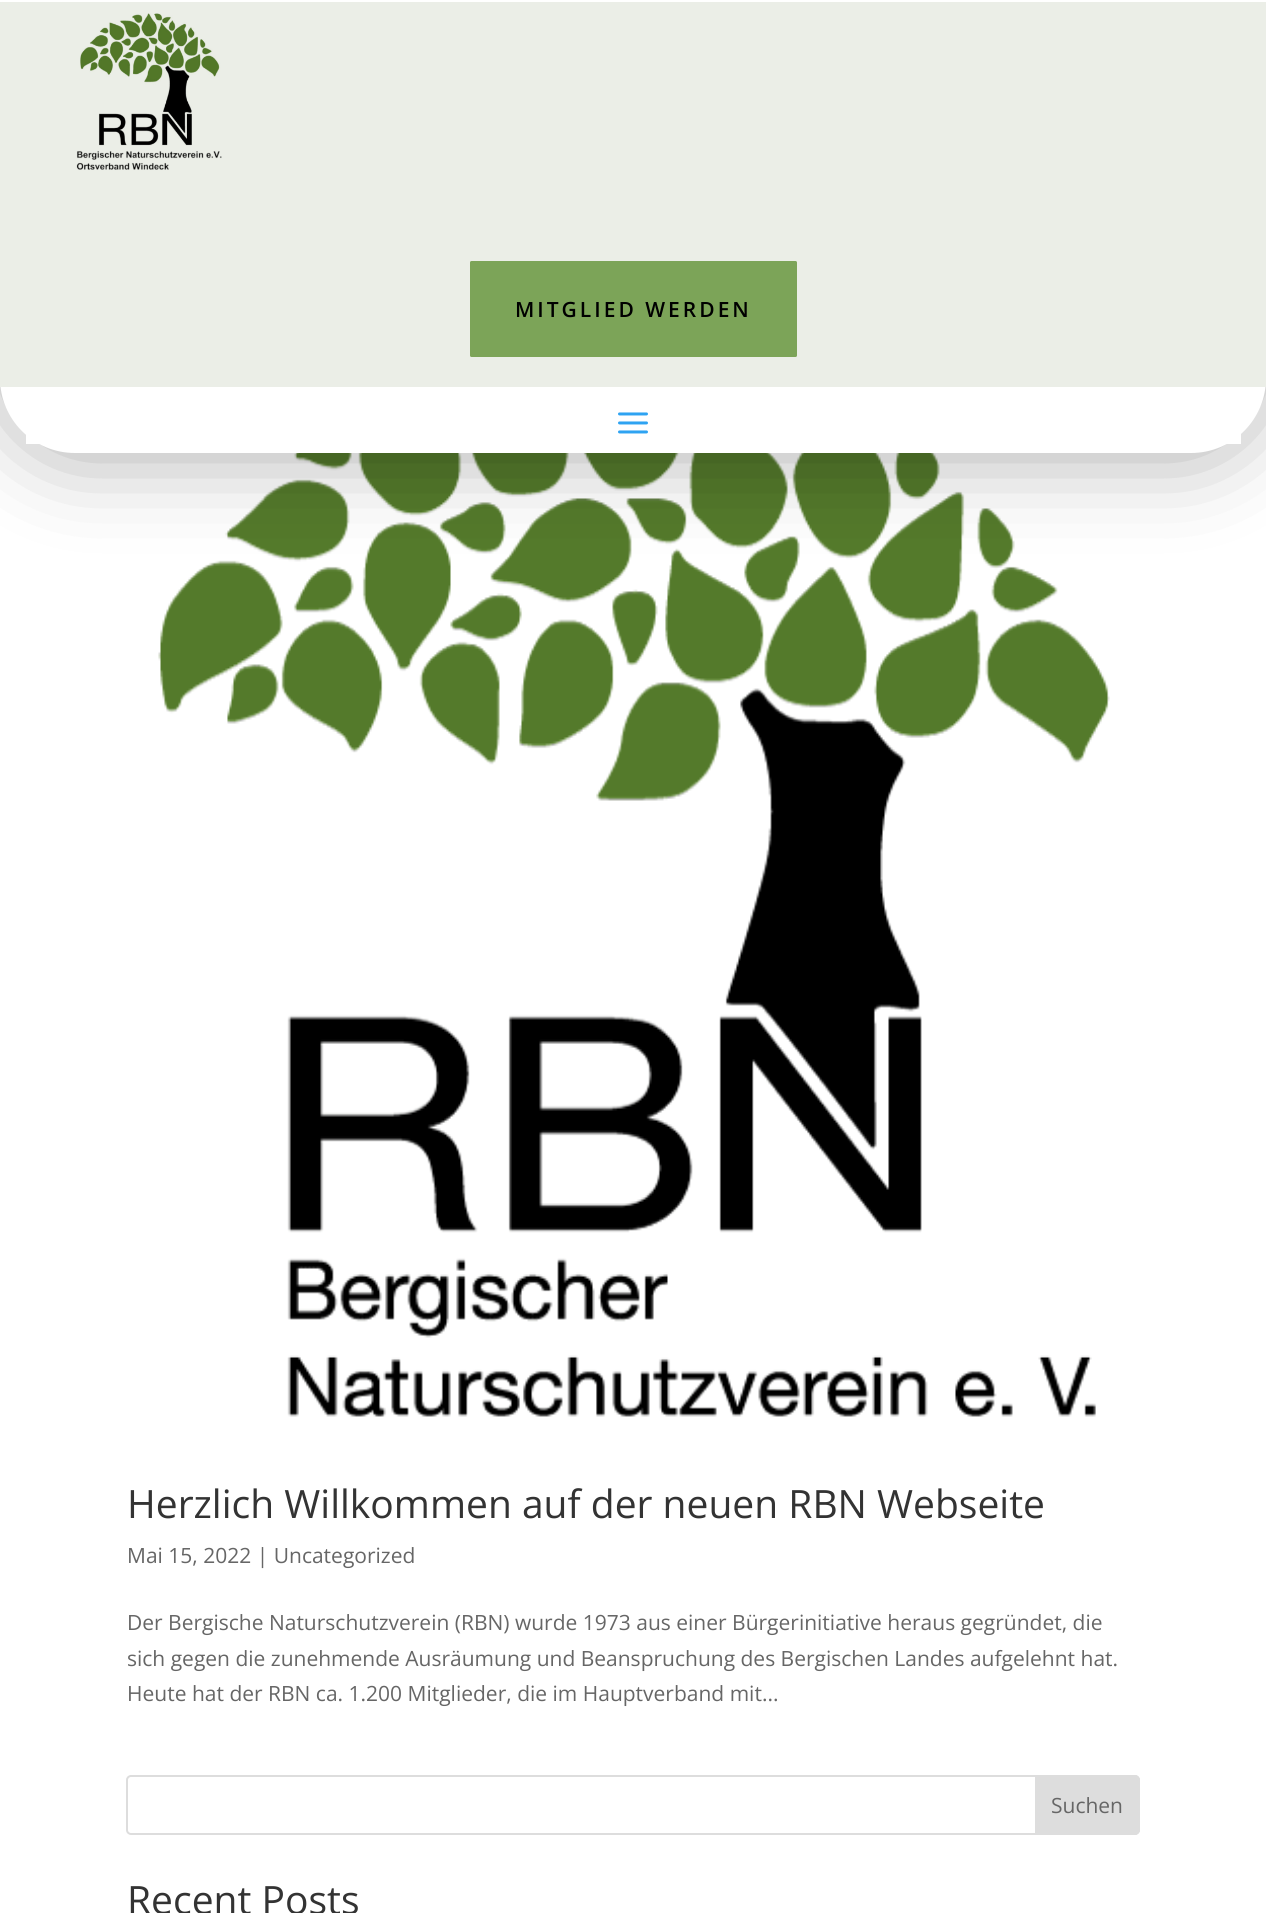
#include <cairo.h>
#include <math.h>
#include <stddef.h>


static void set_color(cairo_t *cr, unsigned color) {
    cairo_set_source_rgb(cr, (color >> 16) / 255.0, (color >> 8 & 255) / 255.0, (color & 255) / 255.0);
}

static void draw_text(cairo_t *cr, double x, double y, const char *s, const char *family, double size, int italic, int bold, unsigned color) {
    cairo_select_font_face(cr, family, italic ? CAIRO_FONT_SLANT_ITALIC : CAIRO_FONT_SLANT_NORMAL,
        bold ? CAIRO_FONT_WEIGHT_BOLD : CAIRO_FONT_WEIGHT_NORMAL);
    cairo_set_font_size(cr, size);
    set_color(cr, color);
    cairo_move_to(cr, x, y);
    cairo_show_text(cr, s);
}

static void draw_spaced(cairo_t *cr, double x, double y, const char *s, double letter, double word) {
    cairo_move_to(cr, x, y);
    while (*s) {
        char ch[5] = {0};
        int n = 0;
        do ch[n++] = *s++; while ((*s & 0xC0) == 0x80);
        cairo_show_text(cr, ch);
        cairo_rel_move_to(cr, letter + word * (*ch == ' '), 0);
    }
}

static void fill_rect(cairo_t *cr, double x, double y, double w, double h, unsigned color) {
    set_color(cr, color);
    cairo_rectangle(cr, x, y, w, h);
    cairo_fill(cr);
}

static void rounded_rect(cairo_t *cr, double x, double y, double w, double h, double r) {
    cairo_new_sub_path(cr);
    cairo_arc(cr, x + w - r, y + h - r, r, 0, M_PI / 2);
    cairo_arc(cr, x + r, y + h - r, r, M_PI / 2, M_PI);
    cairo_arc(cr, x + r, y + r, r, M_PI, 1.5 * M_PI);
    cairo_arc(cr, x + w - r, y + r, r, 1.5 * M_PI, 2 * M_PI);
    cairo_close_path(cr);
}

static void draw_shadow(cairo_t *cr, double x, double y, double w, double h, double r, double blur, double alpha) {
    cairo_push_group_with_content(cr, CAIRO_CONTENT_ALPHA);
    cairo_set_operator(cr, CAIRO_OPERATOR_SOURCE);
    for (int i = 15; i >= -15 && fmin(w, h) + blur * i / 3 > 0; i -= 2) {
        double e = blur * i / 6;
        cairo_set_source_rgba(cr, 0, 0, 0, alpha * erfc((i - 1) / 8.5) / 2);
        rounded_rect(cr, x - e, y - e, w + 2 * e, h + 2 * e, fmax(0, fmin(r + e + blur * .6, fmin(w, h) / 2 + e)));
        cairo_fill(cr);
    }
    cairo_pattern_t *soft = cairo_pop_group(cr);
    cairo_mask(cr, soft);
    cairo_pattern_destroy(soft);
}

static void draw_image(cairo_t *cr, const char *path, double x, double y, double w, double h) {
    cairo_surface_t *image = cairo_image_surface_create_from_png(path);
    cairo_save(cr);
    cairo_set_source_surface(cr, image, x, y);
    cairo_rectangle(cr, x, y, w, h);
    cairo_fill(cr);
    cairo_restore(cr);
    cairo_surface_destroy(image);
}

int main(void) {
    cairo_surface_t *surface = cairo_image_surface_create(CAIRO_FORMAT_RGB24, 1266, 1913);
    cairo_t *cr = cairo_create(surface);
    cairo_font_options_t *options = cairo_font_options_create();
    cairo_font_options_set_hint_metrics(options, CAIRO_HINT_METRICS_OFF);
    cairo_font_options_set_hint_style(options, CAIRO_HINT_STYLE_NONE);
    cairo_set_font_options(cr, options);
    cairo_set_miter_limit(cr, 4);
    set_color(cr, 0xFFFFFF);
    cairo_paint(cr);
    draw_image(cr, "assets/img3.png", 158, 453, 952, 964);
    set_color(cr, 0x000000);
    draw_shadow(cr, 0, 3, 1266, 453, 75, 45, 0.33);
    set_color(cr, 0xFFFFFF);
    cairo_new_path(cr);
    cairo_move_to(cr, 0, 0);
    cairo_line_to(cr, 1266, 0);
    cairo_line_to(cr, 1266, 378);
    cairo_curve_to(cr, 1266, 419.5, 1232.5, 453, 1191, 453);
    cairo_line_to(cr, 75, 453);
    cairo_curve_to(cr, 33.5, 453, 0, 419.5, 0, 378);
    cairo_close_path(cr);
    cairo_fill(cr);
    fill_rect(cr, 0, 2, 1266, 385, 0xEBEEE7);
    draw_image(cr, "assets/img1.png", 76, 13, 146, 157);
    set_color(cr, 0x7CA458);
    rounded_rect(cr, 470, 261, 327, 96, 1.5);
    cairo_fill(cr);
    cairo_select_font_face(cr, "Open Sans SemiBold", CAIRO_FONT_SLANT_NORMAL, CAIRO_FONT_WEIGHT_NORMAL);
    cairo_set_font_size(cr, 21);
    set_color(cr, 0x000000);
    draw_spaced(cr, 515, 317, "MITGLIED WERDEN", 3, 0);
    fill_rect(cr, 26, 434, 1215, 10, 0xFFFFFF);
    draw_image(cr, "assets/img2.png", 618, 412, 30, 22);
    draw_text(cr, 127, 1518, "Herzlich Willkommen auf der neuen RBN Webseite", "Open Sans", 39, 0, 0, 0x333333);
    draw_text(cr, 127, 1563, "Mai 15, 2022 | Uncategorized", "Open Sans", 21, 0, 0, 0x666666);
    draw_text(cr, 127, 1630, "Der Bergische Naturschutzverein (RBN) wurde 1973 aus einer Bürgerinitiative heraus gegründet, die", "Open Sans", 21, 0, 0, 0x666666);
    draw_text(cr, 127, 1666, "sich gegen die zunehmende Ausräumung und Beanspruchung des Bergischen Landes aufgelehnt hat.", "Open Sans", 21, 0, 0, 0x666666);
    draw_text(cr, 127, 1701, "Heute hat der RBN ca. 1.200 Mitglieder, die im Hauptverband mit...", "Open Sans", 21, 0, 0, 0x666666);
    rounded_rect(cr, 127, 1776, 1012, 58, 4);
    set_color(cr, 0xDDDDDD);
    cairo_stroke(cr);
    cairo_new_path(cr);
    cairo_move_to(cr, 1036, 1776);
    cairo_line_to(cr, 1135, 1776);
    cairo_curve_to(cr, 1137, 1776, 1139, 1778, 1139, 1780);
    cairo_line_to(cr, 1139, 1830);
    cairo_curve_to(cr, 1139, 1832, 1137, 1834, 1135, 1834);
    cairo_line_to(cr, 1036, 1834);
    cairo_close_path(cr);
    cairo_fill_preserve(cr);
    cairo_stroke(cr);
    draw_text(cr, 1051, 1813, "Suchen", "Open Sans", 21, 0, 0, 0x666666);
    draw_text(cr, 127, 1914, "Recent Posts", "Open Sans", 39, 0, 0, 0x333333);
    cairo_surface_write_to_png(surface, "output.png");
    cairo_font_options_destroy(options);
    cairo_destroy(cr);
    cairo_surface_destroy(surface);
    return 0;
}
